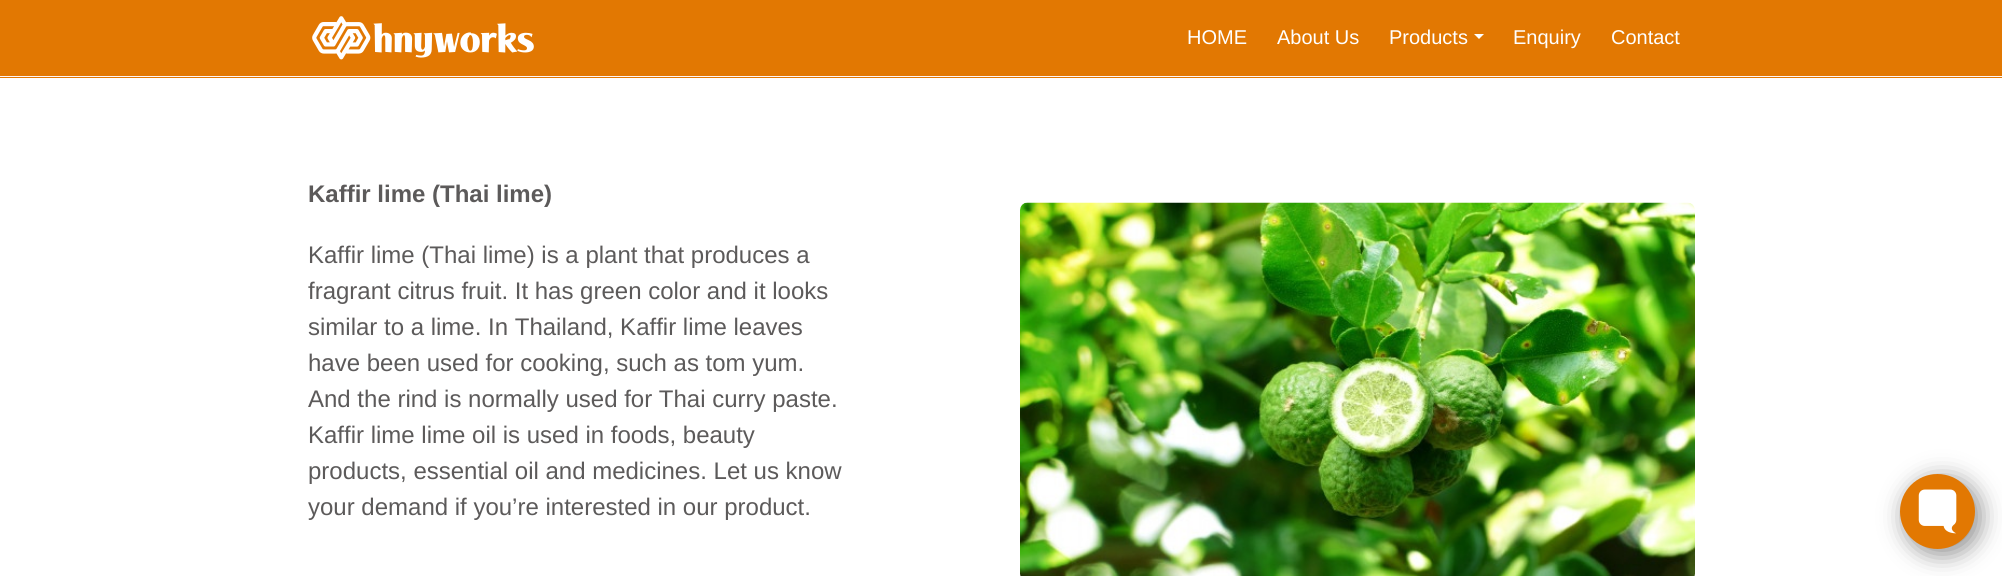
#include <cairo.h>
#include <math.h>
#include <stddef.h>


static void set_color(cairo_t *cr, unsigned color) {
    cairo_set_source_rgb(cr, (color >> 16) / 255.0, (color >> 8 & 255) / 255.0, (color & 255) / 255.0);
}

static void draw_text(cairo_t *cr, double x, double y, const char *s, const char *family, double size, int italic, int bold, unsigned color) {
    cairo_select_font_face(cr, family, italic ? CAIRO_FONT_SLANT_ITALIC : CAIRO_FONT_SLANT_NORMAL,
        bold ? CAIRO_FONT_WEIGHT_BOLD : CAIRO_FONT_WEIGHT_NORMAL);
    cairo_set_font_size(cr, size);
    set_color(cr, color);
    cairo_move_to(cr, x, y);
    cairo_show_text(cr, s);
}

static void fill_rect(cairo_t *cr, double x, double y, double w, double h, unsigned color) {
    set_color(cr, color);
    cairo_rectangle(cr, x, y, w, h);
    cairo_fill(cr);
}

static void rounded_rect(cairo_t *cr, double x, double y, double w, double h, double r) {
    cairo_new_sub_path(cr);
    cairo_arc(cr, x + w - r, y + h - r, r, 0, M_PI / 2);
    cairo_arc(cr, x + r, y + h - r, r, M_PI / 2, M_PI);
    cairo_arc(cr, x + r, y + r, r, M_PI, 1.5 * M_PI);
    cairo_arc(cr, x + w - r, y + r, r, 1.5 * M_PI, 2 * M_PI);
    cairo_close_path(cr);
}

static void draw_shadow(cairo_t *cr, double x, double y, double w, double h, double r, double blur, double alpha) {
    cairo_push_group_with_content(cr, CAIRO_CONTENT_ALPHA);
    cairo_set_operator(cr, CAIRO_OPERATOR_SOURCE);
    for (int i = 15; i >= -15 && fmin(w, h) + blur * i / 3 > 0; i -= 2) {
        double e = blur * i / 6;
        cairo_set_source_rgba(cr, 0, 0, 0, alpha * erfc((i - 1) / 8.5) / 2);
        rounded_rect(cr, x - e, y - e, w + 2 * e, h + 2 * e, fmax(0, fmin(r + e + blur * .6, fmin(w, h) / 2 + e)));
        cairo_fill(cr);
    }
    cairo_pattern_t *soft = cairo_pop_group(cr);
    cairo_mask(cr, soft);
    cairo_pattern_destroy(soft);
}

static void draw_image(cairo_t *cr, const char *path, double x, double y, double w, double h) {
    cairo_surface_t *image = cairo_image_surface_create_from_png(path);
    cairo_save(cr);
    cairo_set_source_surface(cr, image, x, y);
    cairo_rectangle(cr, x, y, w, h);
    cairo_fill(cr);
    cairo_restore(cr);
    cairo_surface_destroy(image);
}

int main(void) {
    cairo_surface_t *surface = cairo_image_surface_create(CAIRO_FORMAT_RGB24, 2002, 576);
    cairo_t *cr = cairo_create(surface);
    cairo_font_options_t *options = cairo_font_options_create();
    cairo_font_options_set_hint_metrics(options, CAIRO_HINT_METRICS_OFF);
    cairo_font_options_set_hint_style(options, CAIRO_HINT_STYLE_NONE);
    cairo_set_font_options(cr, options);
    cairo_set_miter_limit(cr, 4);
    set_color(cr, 0xFFFFFF);
    cairo_paint(cr);
    fill_rect(cr, 0, 0, 2002, 78, 0xE27802);
    fill_rect(cr, 0, 76, 2002, 1, 0xFFF6F8);
    draw_image(cr, "assets/img1.png", 312, 16, 222, 44);
    draw_text(cr, 1187, 44, "HOME", "Liberation Sans", 20, 0, 0, 0xFFFFFF);
    draw_text(cr, 1277, 44, "About Us", "Liberation Sans", 20, 0, 0, 0xFFFFFF);
    draw_text(cr, 1389, 44, "Products", "Liberation Sans", 20, 0, 0, 0xFFFFFF);
    cairo_new_path(cr);
    cairo_move_to(cr, 1474, 34);
    cairo_line_to(cr, 1484, 34);
    cairo_line_to(cr, 1479, 39);
    cairo_close_path(cr);
    cairo_fill(cr);
    draw_text(cr, 1513, 44, "Enquiry", "Liberation Sans", 20, 0, 0, 0xFFFFFF);
    draw_text(cr, 1611, 44, "Contact", "Liberation Sans", 20, 0, 0, 0xFFFFFF);
    draw_text(cr, 308, 202, "Kaffir lime (Thai lime)", "Liberation Sans", 24, 0, 1, 0x5C5A5A);
    draw_text(cr, 308, 263, "Kaffir lime (Thai lime) is a plant that produces a", "Liberation Sans", 24, 0, 0, 0x5C5A5A);
    draw_text(cr, 308, 299, "fragrant citrus fruit. It has green color and it looks", "Liberation Sans", 24, 0, 0, 0x5C5A5A);
    draw_text(cr, 308, 335, "similar to a lime. In Thailand, Kaffir lime leaves", "Liberation Sans", 24, 0, 0, 0x5C5A5A);
    draw_text(cr, 308, 371, "have been used for cooking, such as tom yum.", "Liberation Sans", 24, 0, 0, 0x5C5A5A);
    draw_text(cr, 308, 407, "And the rind is normally used for Thai curry paste.", "Liberation Sans", 24, 0, 0, 0x5C5A5A);
    draw_text(cr, 308, 443, "Kaffir lime lime oil is used in foods, beauty", "Liberation Sans", 24, 0, 0, 0x5C5A5A);
    draw_text(cr, 308, 479, "products, essential oil and medicines. Let us know", "Liberation Sans", 24, 0, 0, 0x5C5A5A);
    draw_text(cr, 308, 515, "your demand if you’re interested in our product.", "Liberation Sans", 24, 0, 0, 0x5C5A5A);
    draw_image(cr, "assets/img2.png", 1020, 202, 675, 374);
    set_color(cr, 0x161616);
    draw_shadow(cr, 1905, 479, 75, 75, 37.5, 12, 0.5);
    set_color(cr, 0xE27802);
    cairo_arc(cr, 1937.5, 511.5, 37.5, 0, 2 * M_PI);
    cairo_fill(cr);
    draw_image(cr, "assets/img3.png", 1918, 489, 39, 45);
    cairo_surface_write_to_png(surface, "output.png");
    cairo_font_options_destroy(options);
    cairo_destroy(cr);
    cairo_surface_destroy(surface);
    return 0;
}
